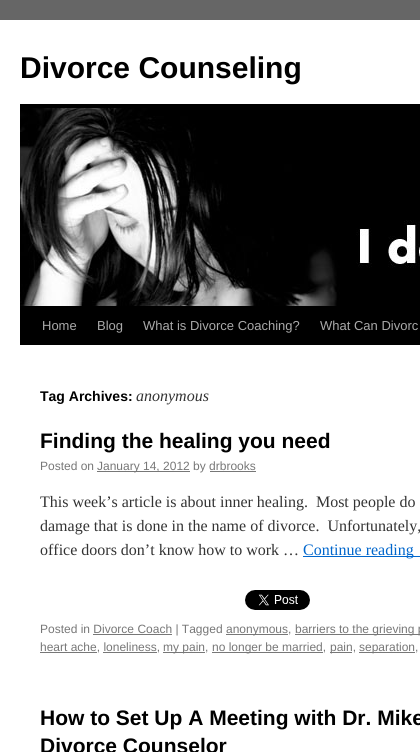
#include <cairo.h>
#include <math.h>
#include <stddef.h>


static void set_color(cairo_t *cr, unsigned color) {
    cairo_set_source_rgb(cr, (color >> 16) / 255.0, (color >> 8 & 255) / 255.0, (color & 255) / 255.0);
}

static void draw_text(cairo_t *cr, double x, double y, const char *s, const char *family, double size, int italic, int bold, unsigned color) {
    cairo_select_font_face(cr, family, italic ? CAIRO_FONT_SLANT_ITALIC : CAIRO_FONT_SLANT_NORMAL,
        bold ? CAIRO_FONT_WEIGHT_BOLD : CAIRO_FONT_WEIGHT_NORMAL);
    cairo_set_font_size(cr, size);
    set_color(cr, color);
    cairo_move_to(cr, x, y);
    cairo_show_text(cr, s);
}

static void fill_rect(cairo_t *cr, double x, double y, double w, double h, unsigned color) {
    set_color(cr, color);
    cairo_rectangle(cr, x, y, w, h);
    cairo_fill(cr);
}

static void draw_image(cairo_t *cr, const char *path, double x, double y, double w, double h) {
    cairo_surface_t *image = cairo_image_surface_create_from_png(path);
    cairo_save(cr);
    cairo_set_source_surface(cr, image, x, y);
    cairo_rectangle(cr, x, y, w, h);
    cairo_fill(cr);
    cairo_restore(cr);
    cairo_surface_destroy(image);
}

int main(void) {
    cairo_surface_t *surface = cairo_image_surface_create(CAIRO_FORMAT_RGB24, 420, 752);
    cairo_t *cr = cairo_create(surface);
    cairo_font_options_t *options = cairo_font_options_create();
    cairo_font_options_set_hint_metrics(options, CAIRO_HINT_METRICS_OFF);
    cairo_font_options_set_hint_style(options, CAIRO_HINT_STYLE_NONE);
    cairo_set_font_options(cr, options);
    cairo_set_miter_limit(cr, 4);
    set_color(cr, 0x666666);
    cairo_paint(cr);
    fill_rect(cr, 0, 20, 420, 732, 0xFFFFFF);
    draw_text(cr, 20, 78, "Divorce Counseling", "Liberation Sans", 30, 0, 1, 0x000000);
    fill_rect(cr, 20, 104, 400, 4, 0x000000);
    fill_rect(cr, 20, 306, 400, 39, 0x000000);
    draw_image(cr, "assets/img1.png", 20, 108, 400, 198);
    draw_text(cr, 42, 330, "Home", "Liberation Sans", 13, 0, 0, 0xAAAAAA);
    draw_text(cr, 97, 330, "Blog", "Liberation Sans", 13, 0, 0, 0xAAAAAA);
    draw_text(cr, 143, 330, "What is Divorce Coaching?", "Liberation Sans", 13, 0, 0, 0xAAAAAA);
    draw_text(cr, 320, 330, "What Can Divorc", "Liberation Sans", 13, 0, 0, 0xAAAAAA);
    draw_text(cr, 40, 401, "Tag Archives:", "Liberation Sans", 14, 0, 1, 0x000000);
    draw_text(cr, 136, 401, "anonymous", "Liberation Serif", 16, 1, 0, 0x333333);
    draw_text(cr, 40, 448, "Finding the healing you need", "Liberation Sans", 21, 0, 1, 0x000000);
    draw_text(cr, 40, 470, "Posted on", "Liberation Sans", 12, 0, 0, 0x777777);
    fill_rect(cr, 97, 471, 93, 1, 0x777777);
    draw_text(cr, 97, 470, "January 14, 2012 by drbrooks", "Liberation Sans", 12, 0, 0, 0x777777);
    fill_rect(cr, 210, 471, 46, 1, 0x777777);
    draw_text(cr, 40, 507, "This week’s article is about inner healing.  Most people do", "Liberation Serif", 16, 0, 0, 0x333333);
    draw_text(cr, 40, 531, "damage that is done in the name of divorce.  Unfortunately,", "Liberation Serif", 16, 0, 0, 0x333333);
    draw_text(cr, 40, 555, "office doors don’t know how to work …", "Liberation Serif", 16, 0, 0, 0x333333);
    fill_rect(cr, 303, 556, 117, 1, 0x0066CC);
    draw_text(cr, 303, 555, "Continue reading", "Liberation Serif", 16, 0, 0, 0x0066CC);
    draw_image(cr, "assets/img2.png", 245, 590, 65, 20);
    draw_text(cr, 40, 633, "Posted in Divorce Coach | Tagged", "Liberation Sans", 12, 0, 0, 0x777777);
    fill_rect(cr, 93, 634, 79, 1, 0x777777);
    fill_rect(cr, 226, 634, 62, 1, 0x777777);
    draw_text(cr, 226, 633, "anonymous,", "Liberation Sans", 12, 0, 0, 0x777777);
    fill_rect(cr, 295, 634, 125, 1, 0x777777);
    draw_text(cr, 295, 633, "barriers to the grieving p", "Liberation Sans", 12, 0, 0, 0x777777);
    fill_rect(cr, 40, 652, 57, 1, 0x777777);
    draw_text(cr, 40, 651, "heart ache, loneliness,", "Liberation Sans", 12, 0, 0, 0x777777);
    fill_rect(cr, 103, 652, 54, 1, 0x777777);
    fill_rect(cr, 163, 652, 42, 1, 0x777777);
    draw_text(cr, 163, 651, "my pain,", "Liberation Sans", 12, 0, 0, 0x777777);
    fill_rect(cr, 212, 652, 111, 1, 0x777777);
    draw_text(cr, 212, 651, "no longer be married,", "Liberation Sans", 12, 0, 0, 0x777777);
    fill_rect(cr, 330, 652, 22, 1, 0x777777);
    draw_text(cr, 330, 651, "pain,", "Liberation Sans", 12, 0, 0, 0x777777);
    fill_rect(cr, 359, 652, 56, 1, 0x777777);
    draw_text(cr, 359, 651, "separation,", "Liberation Sans", 12, 0, 0, 0x777777);
    draw_text(cr, 40, 725, "How to Set Up A Meeting with Dr. Mike", "Liberation Sans", 21, 0, 1, 0x000000);
    draw_text(cr, 40, 753, "Divorce Counselor", "Liberation Sans", 21, 0, 1, 0x000000);
    cairo_surface_write_to_png(surface, "output.png");
    cairo_font_options_destroy(options);
    cairo_destroy(cr);
    cairo_surface_destroy(surface);
    return 0;
}
